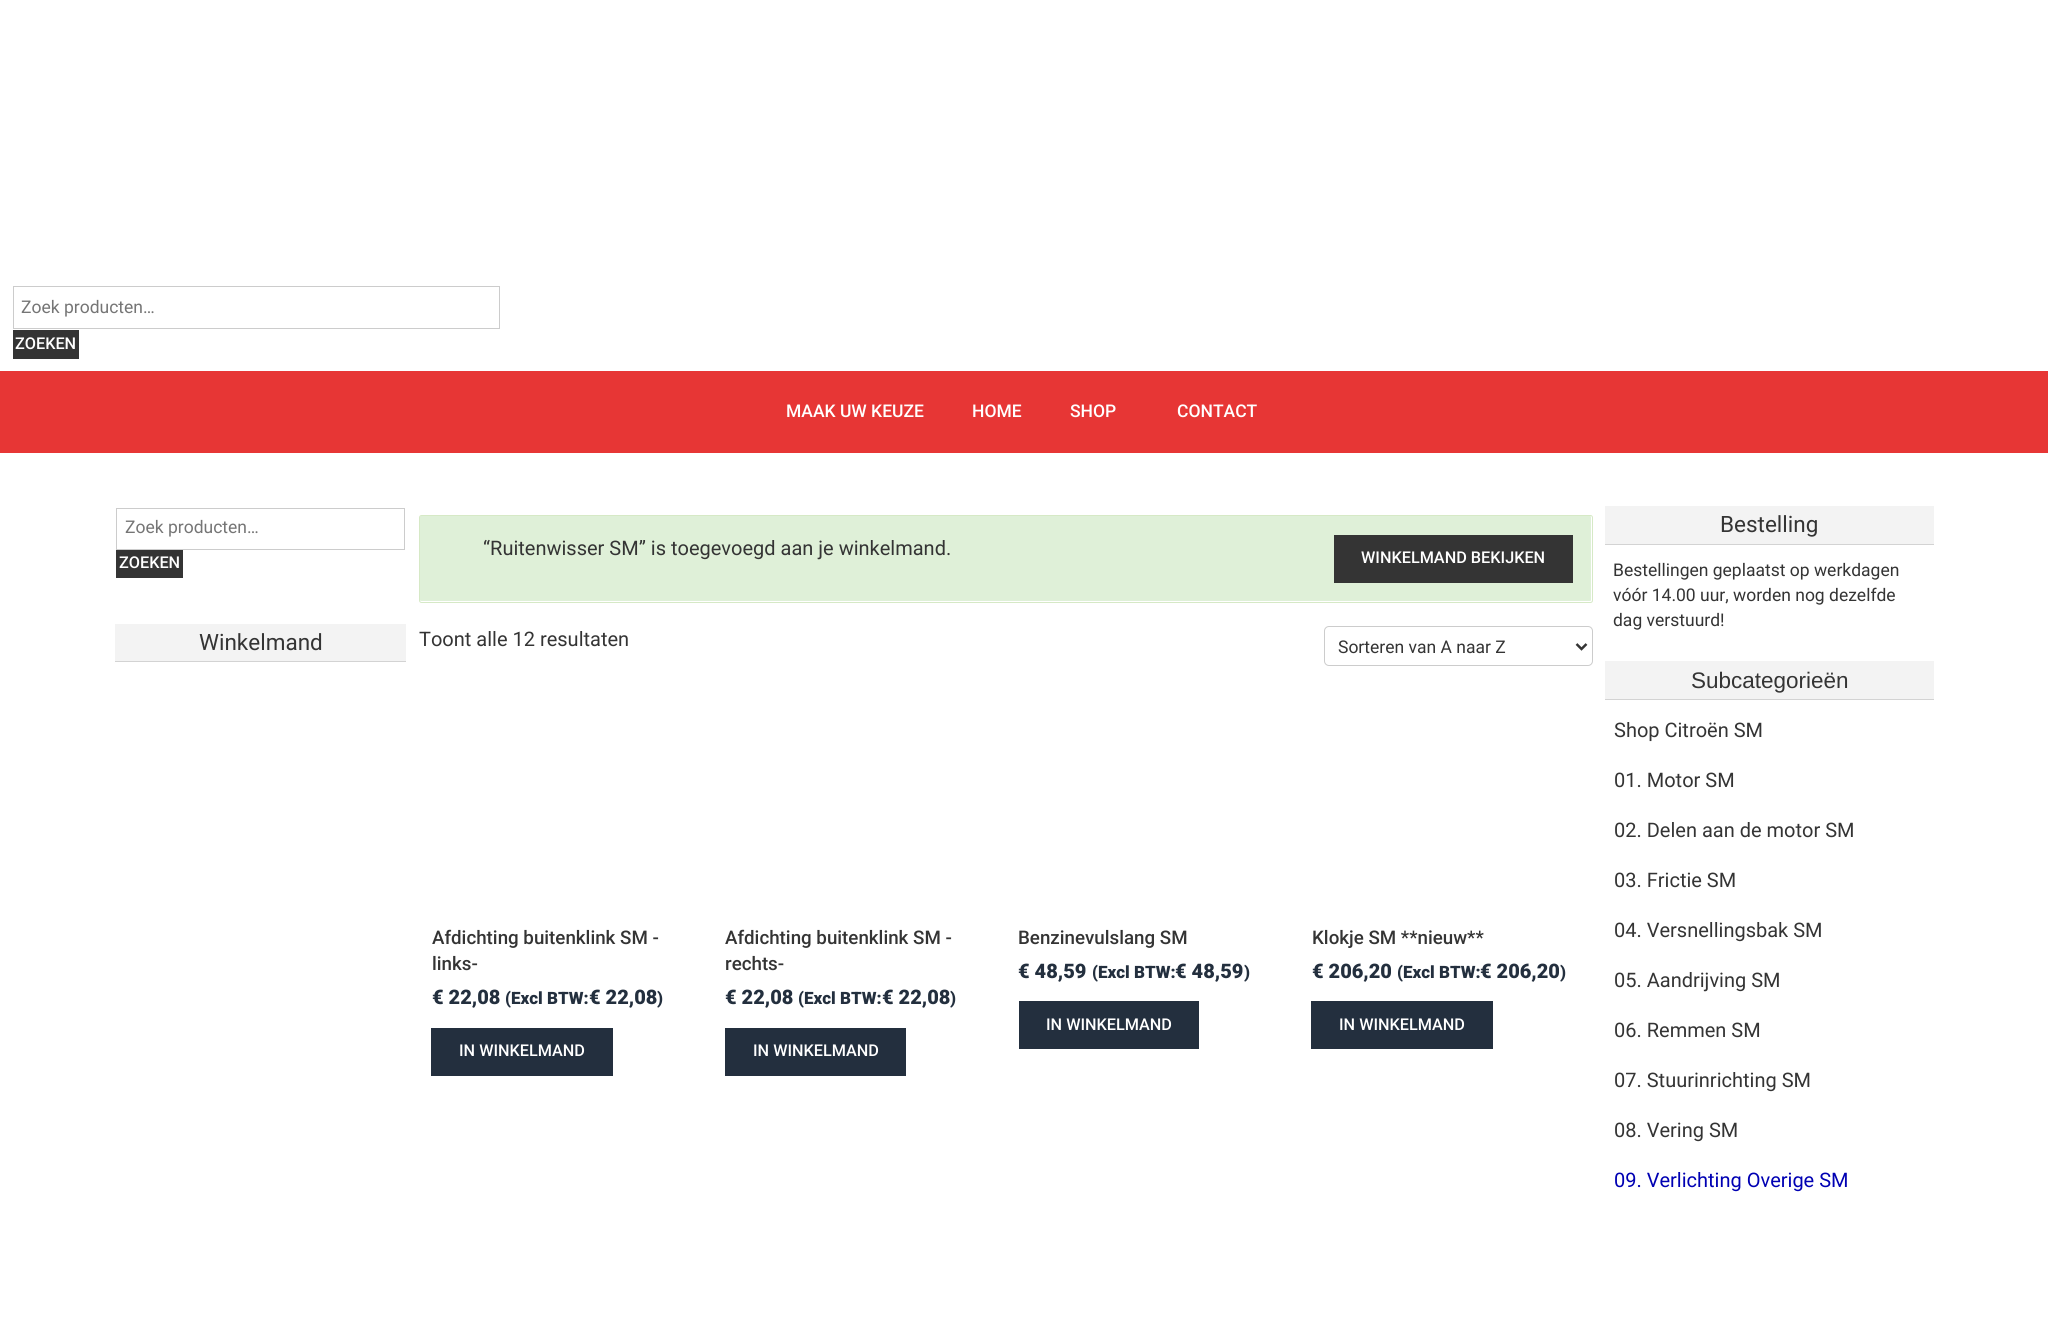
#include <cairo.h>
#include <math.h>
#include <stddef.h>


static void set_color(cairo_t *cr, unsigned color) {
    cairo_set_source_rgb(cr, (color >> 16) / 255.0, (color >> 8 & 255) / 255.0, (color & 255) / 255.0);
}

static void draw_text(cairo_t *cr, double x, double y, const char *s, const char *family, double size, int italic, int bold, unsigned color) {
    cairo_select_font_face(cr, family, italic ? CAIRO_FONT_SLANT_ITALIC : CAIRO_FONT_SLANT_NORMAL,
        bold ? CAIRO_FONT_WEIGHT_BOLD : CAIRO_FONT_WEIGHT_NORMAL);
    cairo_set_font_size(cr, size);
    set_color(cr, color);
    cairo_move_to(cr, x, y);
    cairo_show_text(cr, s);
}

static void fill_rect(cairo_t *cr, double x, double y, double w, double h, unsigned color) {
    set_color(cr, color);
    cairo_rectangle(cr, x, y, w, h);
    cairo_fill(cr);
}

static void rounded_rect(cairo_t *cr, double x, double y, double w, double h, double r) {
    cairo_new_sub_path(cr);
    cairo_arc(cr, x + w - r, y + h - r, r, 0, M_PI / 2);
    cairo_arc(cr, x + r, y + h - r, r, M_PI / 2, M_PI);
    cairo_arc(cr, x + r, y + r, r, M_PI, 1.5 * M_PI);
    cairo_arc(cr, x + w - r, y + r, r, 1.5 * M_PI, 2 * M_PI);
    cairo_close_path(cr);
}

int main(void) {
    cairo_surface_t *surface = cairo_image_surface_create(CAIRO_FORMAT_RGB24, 2048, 1320);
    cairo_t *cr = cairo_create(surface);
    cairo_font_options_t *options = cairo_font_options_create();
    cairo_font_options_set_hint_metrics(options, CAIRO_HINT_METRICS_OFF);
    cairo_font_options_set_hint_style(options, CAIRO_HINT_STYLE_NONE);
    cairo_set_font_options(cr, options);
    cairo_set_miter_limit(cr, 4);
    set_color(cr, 0xFFFFFF);
    cairo_paint(cr);
    cairo_rectangle(cr, 13.5, 286.5, 486, 42);
    set_color(cr, 0xCCCCCC);
    cairo_set_line_width(cr, 1);
    cairo_stroke(cr);
    draw_text(cr, 21, 313, "Zoek producten…", "Roboto", 17.5, 0, 0, 0x757575);
    set_color(cr, 0x343434);
    cairo_rectangle(cr, 14.5, 331.5, 63, 26);
    cairo_fill_preserve(cr);
    cairo_set_line_width(cr, 3);
    cairo_stroke(cr);
    draw_text(cr, 15, 349, "ZOEKEN", "Roboto Medium", 16.25, 0, 0, 0xFFFFFF);
    fill_rect(cr, 0, 371, 2048, 82, 0xE73635);
    draw_text(cr, 786, 417, "MAAK UW KEUZE", "Roboto Medium", 17.5, 0, 0, 0xFFFFFF);
    draw_text(cr, 972, 417, "HOME", "Roboto Medium", 17.5, 0, 0, 0xFFFFFF);
    draw_text(cr, 1070, 417, "SHOP", "Roboto Medium", 17.5, 0, 0, 0xFFFFFF);
    draw_text(cr, 1177, 417, "CONTACT", "Roboto Medium", 17.5, 0, 0, 0xFFFFFF);
    cairo_rectangle(cr, 116.5, 508.5, 288, 41);
    set_color(cr, 0xCCCCCC);
    cairo_set_line_width(cr, 1);
    cairo_stroke(cr);
    draw_text(cr, 125, 533, "Zoek producten…", "Roboto", 17.5, 0, 0, 0x757575);
    set_color(cr, 0x343434);
    cairo_rectangle(cr, 117.5, 551.5, 64, 25);
    cairo_fill_preserve(cr);
    cairo_set_line_width(cr, 3);
    cairo_stroke(cr);
    draw_text(cr, 119, 568, "ZOEKEN", "Roboto Medium", 16.25, 0, 0, 0xFFFFFF);
    fill_rect(cr, 115, 624, 291, 37, 0xF3F3F3);
    fill_rect(cr, 115, 661, 291, 1, 0xD3D3D3);
    draw_text(cr, 199, 650, "Winkelmand", "Roboto", 22.5, 0, 0, 0x343434);
    set_color(cr, 0xDFF0D8);
    rounded_rect(cr, 420, 516, 1171, 85, 1);
    cairo_fill(cr);
    rounded_rect(cr, 419.5, 515.5, 1173, 87, 2);
    set_color(cr, 0xD6E9C6);
    cairo_set_line_width(cr, 1);
    cairo_stroke(cr);
    draw_text(cr, 483, 555, "“Ruitenwisser SM” is toegevoegd aan je winkelmand.", "Roboto", 20, 0, 0, 0x343434);
    cairo_rectangle(cr, 1335.5, 536.5, 236, 45);
    cairo_fill_preserve(cr);
    cairo_set_line_width(cr, 3);
    cairo_stroke(cr);
    draw_text(cr, 1361, 563, "WINKELMAND BEKIJKEN", "Roboto Medium", 16.25, 0, 0, 0xFFFFFF);
    draw_text(cr, 419, 646, "Toont alle 12 resultaten", "Roboto", 20, 0, 0, 0x343434);
    rounded_rect(cr, 1324.5, 626.5, 268, 39, 4.5);
    set_color(cr, 0xCCCCCC);
    cairo_set_line_width(cr, 1);
    cairo_stroke(cr);
    cairo_new_path(cr);
    cairo_move_to(cr, 1576.5, 644);
    cairo_line_to(cr, 1581.5, 649);
    cairo_line_to(cr, 1586.5, 644);
    set_color(cr, 0x343434);
    cairo_set_line_width(cr, 2.5);
    cairo_stroke(cr);
    draw_text(cr, 1338, 653, "Sorteren van A naar Z", "Roboto", 17.5, 0, 0, 0x343434);
    draw_text(cr, 432, 944, "Afdichting buitenklink SM -", "Roboto Medium", 18.75, 0, 0, 0x343434);
    draw_text(cr, 432, 970, "links-", "Roboto Medium", 18.75, 0, 0, 0x343434);
    draw_text(cr, 432, 1004, "€ 22,08", "Roboto Black", 20, 0, 0, 0x232F3E);
    draw_text(cr, 505, 1004, "(Excl BTW:", "Roboto Black", 17, 0, 0, 0x232F3E);
    draw_text(cr, 589, 1004, "€ 22,08", "Roboto Black", 20, 0, 0, 0x232F3E);
    draw_text(cr, 657, 1004, ")", "Roboto Black", 17, 0, 0, 0x232F3E);
    cairo_rectangle(cr, 432.5, 1029.5, 179, 45);
    cairo_fill_preserve(cr);
    cairo_set_line_width(cr, 3);
    cairo_stroke(cr);
    draw_text(cr, 459, 1056, "IN WINKELMAND", "Roboto Medium", 16.25, 0, 0, 0xFFFFFF);
    draw_text(cr, 725, 944, "Afdichting buitenklink SM -", "Roboto Medium", 18.75, 0, 0, 0x343434);
    draw_text(cr, 725, 970, "rechts-", "Roboto Medium", 18.75, 0, 0, 0x343434);
    draw_text(cr, 725, 1004, "€ 22,08", "Roboto Black", 20, 0, 0, 0x232F3E);
    draw_text(cr, 798, 1004, "(Excl BTW:", "Roboto Black", 17, 0, 0, 0x232F3E);
    draw_text(cr, 882, 1004, "€ 22,08", "Roboto Black", 20, 0, 0, 0x232F3E);
    draw_text(cr, 950, 1004, ")", "Roboto Black", 17, 0, 0, 0x232F3E);
    cairo_rectangle(cr, 726.5, 1029.5, 178, 45);
    cairo_fill_preserve(cr);
    cairo_stroke(cr);
    draw_text(cr, 753, 1056, "IN WINKELMAND", "Roboto Medium", 16.25, 0, 0, 0xFFFFFF);
    draw_text(cr, 1018, 944, "Benzinevulslang SM", "Roboto Medium", 18.75, 0, 0, 0x343434);
    draw_text(cr, 1018, 978, "€ 48,59", "Roboto Black", 20, 0, 0, 0x232F3E);
    draw_text(cr, 1092, 978, "(Excl BTW:", "Roboto Black", 17, 0, 0, 0x232F3E);
    draw_text(cr, 1175, 978, "€ 48,59", "Roboto Black", 20, 0, 0, 0x232F3E);
    draw_text(cr, 1244, 978, ")", "Roboto Black", 17, 0, 0, 0x232F3E);
    cairo_rectangle(cr, 1020.5, 1002.5, 177, 45);
    cairo_fill_preserve(cr);
    cairo_stroke(cr);
    draw_text(cr, 1046, 1030, "IN WINKELMAND", "Roboto Medium", 16.25, 0, 0, 0xFFFFFF);
    draw_text(cr, 1312, 944, "Klokje SM **nieuw**", "Roboto Medium", 18.75, 0, 0, 0x343434);
    draw_text(cr, 1312, 978, "€ 206,20", "Roboto Black", 20, 0, 0, 0x232F3E);
    draw_text(cr, 1397, 978, "(Excl BTW:", "Roboto Black", 17, 0, 0, 0x232F3E);
    draw_text(cr, 1480, 978, "€ 206,20", "Roboto Black", 20, 0, 0, 0x232F3E);
    draw_text(cr, 1560, 978, ")", "Roboto Black", 17, 0, 0, 0x232F3E);
    cairo_rectangle(cr, 1312.5, 1002.5, 179, 45);
    cairo_fill_preserve(cr);
    cairo_stroke(cr);
    draw_text(cr, 1339, 1030, "IN WINKELMAND", "Roboto Medium", 16.25, 0, 0, 0xFFFFFF);
    fill_rect(cr, 1605, 506, 329, 38, 0xF3F3F3);
    fill_rect(cr, 1605, 544, 329, 1, 0xD3D3D3);
    draw_text(cr, 1720, 532, "Bestelling", "Roboto", 22.5, 0, 0, 0x343434);
    draw_text(cr, 1613, 576, "Bestellingen geplaatst op werkdagen", "Roboto", 17.5, 0, 0, 0x343434);
    draw_text(cr, 1613, 601, "vóór 14.00 uur, worden nog dezelfde", "Roboto", 17.5, 0, 0, 0x343434);
    draw_text(cr, 1613, 626, "dag verstuurd!", "Roboto", 17.5, 0, 0, 0x343434);
    fill_rect(cr, 1605, 661, 329, 38, 0xF3F3F3);
    fill_rect(cr, 1605, 699, 329, 1, 0xD3D3D3);
    draw_text(cr, 1691, 688, "Subcategorieën", "Liberation Sans", 22.5, 0, 0, 0x343434);
    draw_text(cr, 1614, 737, "Shop Citroën SM", "Roboto", 20, 0, 0, 0x343434);
    draw_text(cr, 1614, 787, "01. Motor SM", "Roboto", 20, 0, 0, 0x343434);
    draw_text(cr, 1614, 837, "02. Delen aan de motor SM", "Roboto", 20, 0, 0, 0x343434);
    draw_text(cr, 1614, 887, "03. Frictie SM", "Roboto", 20, 0, 0, 0x343434);
    draw_text(cr, 1614, 937, "04. Versnellingsbak SM", "Roboto", 20, 0, 0, 0x343434);
    draw_text(cr, 1614, 987, "05. Aandrijving SM", "Roboto", 20, 0, 0, 0x343434);
    draw_text(cr, 1614, 1037, "06. Remmen SM", "Roboto", 20, 0, 0, 0x343434);
    draw_text(cr, 1614, 1087, "07. Stuurinrichting SM", "Roboto", 20, 0, 0, 0x343434);
    draw_text(cr, 1614, 1137, "08. Vering SM", "Roboto", 20, 0, 0, 0x343434);
    draw_text(cr, 1614, 1187, "09. Verlichting Overige SM", "Roboto", 20, 0, 0, 0x0000B3);
    cairo_surface_write_to_png(surface, "output.png");
    cairo_font_options_destroy(options);
    cairo_destroy(cr);
    cairo_surface_destroy(surface);
    return 0;
}
